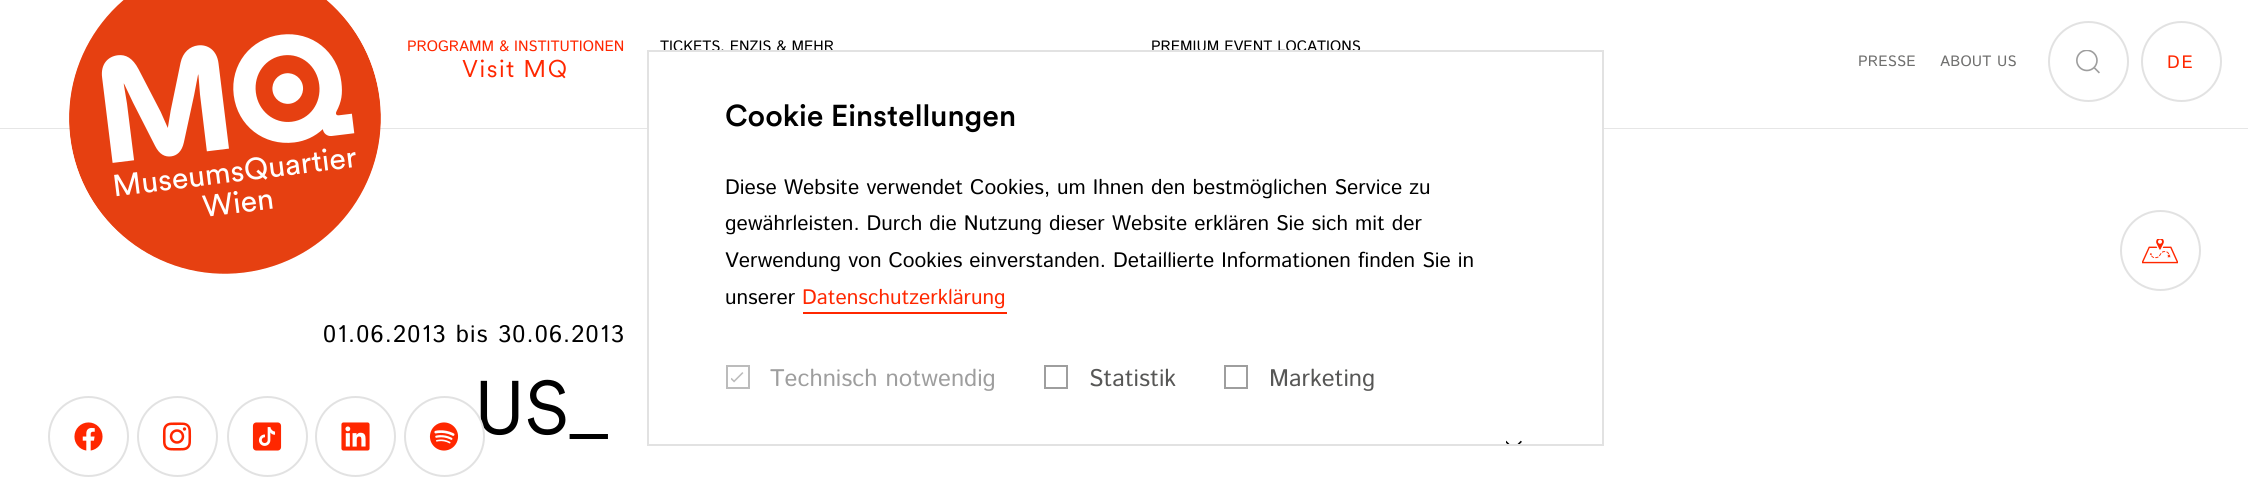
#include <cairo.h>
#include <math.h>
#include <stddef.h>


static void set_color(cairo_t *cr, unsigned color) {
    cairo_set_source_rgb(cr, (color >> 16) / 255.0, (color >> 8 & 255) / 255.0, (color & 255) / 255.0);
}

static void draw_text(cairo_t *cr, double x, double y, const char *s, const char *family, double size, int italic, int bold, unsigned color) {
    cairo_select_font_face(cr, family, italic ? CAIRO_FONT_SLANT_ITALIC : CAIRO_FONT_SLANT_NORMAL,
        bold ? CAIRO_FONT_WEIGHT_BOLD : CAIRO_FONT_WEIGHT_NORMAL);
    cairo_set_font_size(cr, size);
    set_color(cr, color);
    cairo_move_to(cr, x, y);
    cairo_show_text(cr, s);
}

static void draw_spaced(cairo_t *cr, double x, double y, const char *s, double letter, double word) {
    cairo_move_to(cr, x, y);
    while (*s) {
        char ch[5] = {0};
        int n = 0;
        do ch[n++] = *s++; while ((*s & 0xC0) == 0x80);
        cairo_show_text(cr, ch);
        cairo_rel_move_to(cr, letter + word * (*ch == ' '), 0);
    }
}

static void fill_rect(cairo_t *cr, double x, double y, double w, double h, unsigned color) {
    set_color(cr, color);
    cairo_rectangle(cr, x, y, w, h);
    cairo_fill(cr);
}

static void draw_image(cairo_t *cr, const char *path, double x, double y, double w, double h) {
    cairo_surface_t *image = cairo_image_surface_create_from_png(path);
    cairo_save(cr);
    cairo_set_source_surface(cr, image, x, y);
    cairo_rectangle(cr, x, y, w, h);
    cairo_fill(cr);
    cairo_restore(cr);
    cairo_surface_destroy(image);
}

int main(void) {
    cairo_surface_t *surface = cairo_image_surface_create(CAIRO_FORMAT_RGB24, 2248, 494);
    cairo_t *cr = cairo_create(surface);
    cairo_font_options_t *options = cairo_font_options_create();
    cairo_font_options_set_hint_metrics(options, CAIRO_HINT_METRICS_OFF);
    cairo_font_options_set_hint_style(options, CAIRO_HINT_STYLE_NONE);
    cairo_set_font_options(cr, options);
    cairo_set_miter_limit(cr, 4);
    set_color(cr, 0xFFFFFF);
    cairo_paint(cr);
    set_color(cr, 0xE6E6E6);
    cairo_new_path(cr);
    cairo_move_to(cr, 0, 128);
    cairo_line_to(cr, 0, 129);
    cairo_line_to(cr, 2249, 129);
    cairo_line_to(cr, 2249, 2);
    cairo_line_to(cr, 2248, 2);
    cairo_line_to(cr, 2248, 128);
    cairo_close_path(cr);
    cairo_fill(cr);
    draw_image(cr, "assets/img1.png", 69, 0, 312, 274);
    draw_text(cr, 407, 51, "PROGRAMM & INSTITUTIONEN", "Istok Web", 15, 0, 0, 0xFF2700);
    cairo_select_font_face(cr, "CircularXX", CAIRO_FONT_SLANT_NORMAL, CAIRO_FONT_WEIGHT_NORMAL);
    cairo_set_font_size(cr, 24);
    draw_spaced(cr, 462, 77, "Visit MQ", 1.5, 0);
    draw_text(cr, 660, 51, "TICKETS, ENZIS & MEHR", "Istok Web", 15, 0, 0, 0x000000);
    draw_text(cr, 1151, 51, "PREMIUM EVENT LOCATIONS", "Istok Web", 15, 0, 0, 0x000000);
    set_color(cr, 0x6F6F6E);
    draw_spaced(cr, 1858, 66, "PRESSE", 0.25, 0);
    draw_spaced(cr, 1940, 66, "ABOUT US", 0.25, 0);
    cairo_new_path(cr);
    cairo_arc(cr, 2088.5, 61.5, 39.5, 0, 2 * M_PI);
    set_color(cr, 0xE2E2E2);
    cairo_stroke(cr);
    draw_image(cr, "assets/img2.png", 2076, 50, 24, 24);
    cairo_arc(cr, 2181.5, 61.5, 39.5, 0, 2 * M_PI);
    cairo_stroke(cr);
    cairo_set_font_size(cr, 18);
    set_color(cr, 0xFF2700);
    draw_spaced(cr, 2167, 68, "DE", 2, 0);
    cairo_set_font_size(cr, 24);
    set_color(cr, 0x000000);
    draw_spaced(cr, 323, 342, "01.06.2013 bis 30.06.2013", 1.2, 0);
    draw_text(cr, 474, 434, "US_", "CircularXX", 75, 0, 0, 0x000000);
    fill_rect(cr, 649, 52, 953, 77, 0xFFFFFF);
    cairo_rectangle(cr, 648, 51, 955, 394);
    set_color(cr, 0xE2E2E2);
    cairo_stroke(cr);
    draw_text(cr, 725, 126, "Cookie Einstellungen", "CircularXX Medium", 30, 0, 0, 0x000000);
    draw_text(cr, 725, 194, "Diese Website verwendet Cookies, um Ihnen den bestmöglichen Service zu", "Istok Web", 21, 0, 0, 0x000000);
    draw_text(cr, 725, 230, "gewährleisten. Durch die Nutzung dieser Website erklären Sie sich mit der", "Istok Web", 21, 0, 0, 0x000000);
    draw_text(cr, 725, 267, "Verwendung von Cookies einverstanden. Detaillierte Informationen finden Sie in", "Istok Web", 21, 0, 0, 0x000000);
    draw_text(cr, 725, 304, "unserer", "Istok Web", 21, 0, 0, 0x000000);
    draw_text(cr, 802, 304, "Datenschutzerklärung", "Istok Web", 21, 0, 0, 0xFF2700);
    fill_rect(cr, 803, 312, 204, 2, 0xFF2700);
    draw_image(cr, "assets/img3.png", 731, 372, 13, 11);
    cairo_rectangle(cr, 727, 366, 22, 22);
    set_color(cr, 0xBCBCBC);
    cairo_stroke(cr);
    draw_text(cr, 770, 386, "Technisch notwendig", "Istok Web", 24, 0, 0, 0x9E9E9E);
    cairo_rectangle(cr, 1045, 366, 22, 22);
    cairo_stroke(cr);
    draw_text(cr, 1089, 386, "Statistik", "Istok Web", 24, 0, 0, 0x575756);
    cairo_rectangle(cr, 1225, 366, 22, 22);
    set_color(cr, 0x9E9E9E);
    cairo_stroke(cr);
    draw_text(cr, 1269, 386, "Marketing", "Istok Web", 24, 0, 0, 0x575756);
    draw_image(cr, "assets/img4.png", 1506, 440, 16, 4);
    cairo_arc(cr, 2160.5, 250.5, 39.5, 0, 2 * M_PI);
    set_color(cr, 0xE2E2E2);
    cairo_stroke(cr);
    draw_image(cr, "assets/img5.png", 2142, 239, 36, 25);
    cairo_arc(cr, 88.5, 436.5, 39.5, 0, 2 * M_PI);
    cairo_stroke(cr);
    draw_image(cr, "assets/img6.png", 74, 422, 29, 29);
    cairo_arc(cr, 177.5, 436.5, 39.5, 0, 2 * M_PI);
    cairo_stroke(cr);
    draw_image(cr, "assets/img7.png", 162, 422, 30, 29);
    cairo_arc(cr, 267.5, 436.5, 39.5, 0, 2 * M_PI);
    cairo_stroke(cr);
    draw_image(cr, "assets/img8.png", 252, 422, 30, 29);
    cairo_arc(cr, 355.5, 436.5, 39.5, 0, 2 * M_PI);
    cairo_stroke(cr);
    draw_image(cr, "assets/img9.png", 341, 422, 29, 29);
    set_color(cr, 0xFFFFFF);
    cairo_arc(cr, 444.5, 436.5, 39.5, 0, 2 * M_PI);
    cairo_fill_preserve(cr);
    set_color(cr, 0xE2E2E2);
    cairo_stroke(cr);
    draw_image(cr, "assets/img10.png", 429, 422, 30, 29);
    cairo_surface_write_to_png(surface, "output.png");
    cairo_font_options_destroy(options);
    cairo_destroy(cr);
    cairo_surface_destroy(surface);
    return 0;
}
